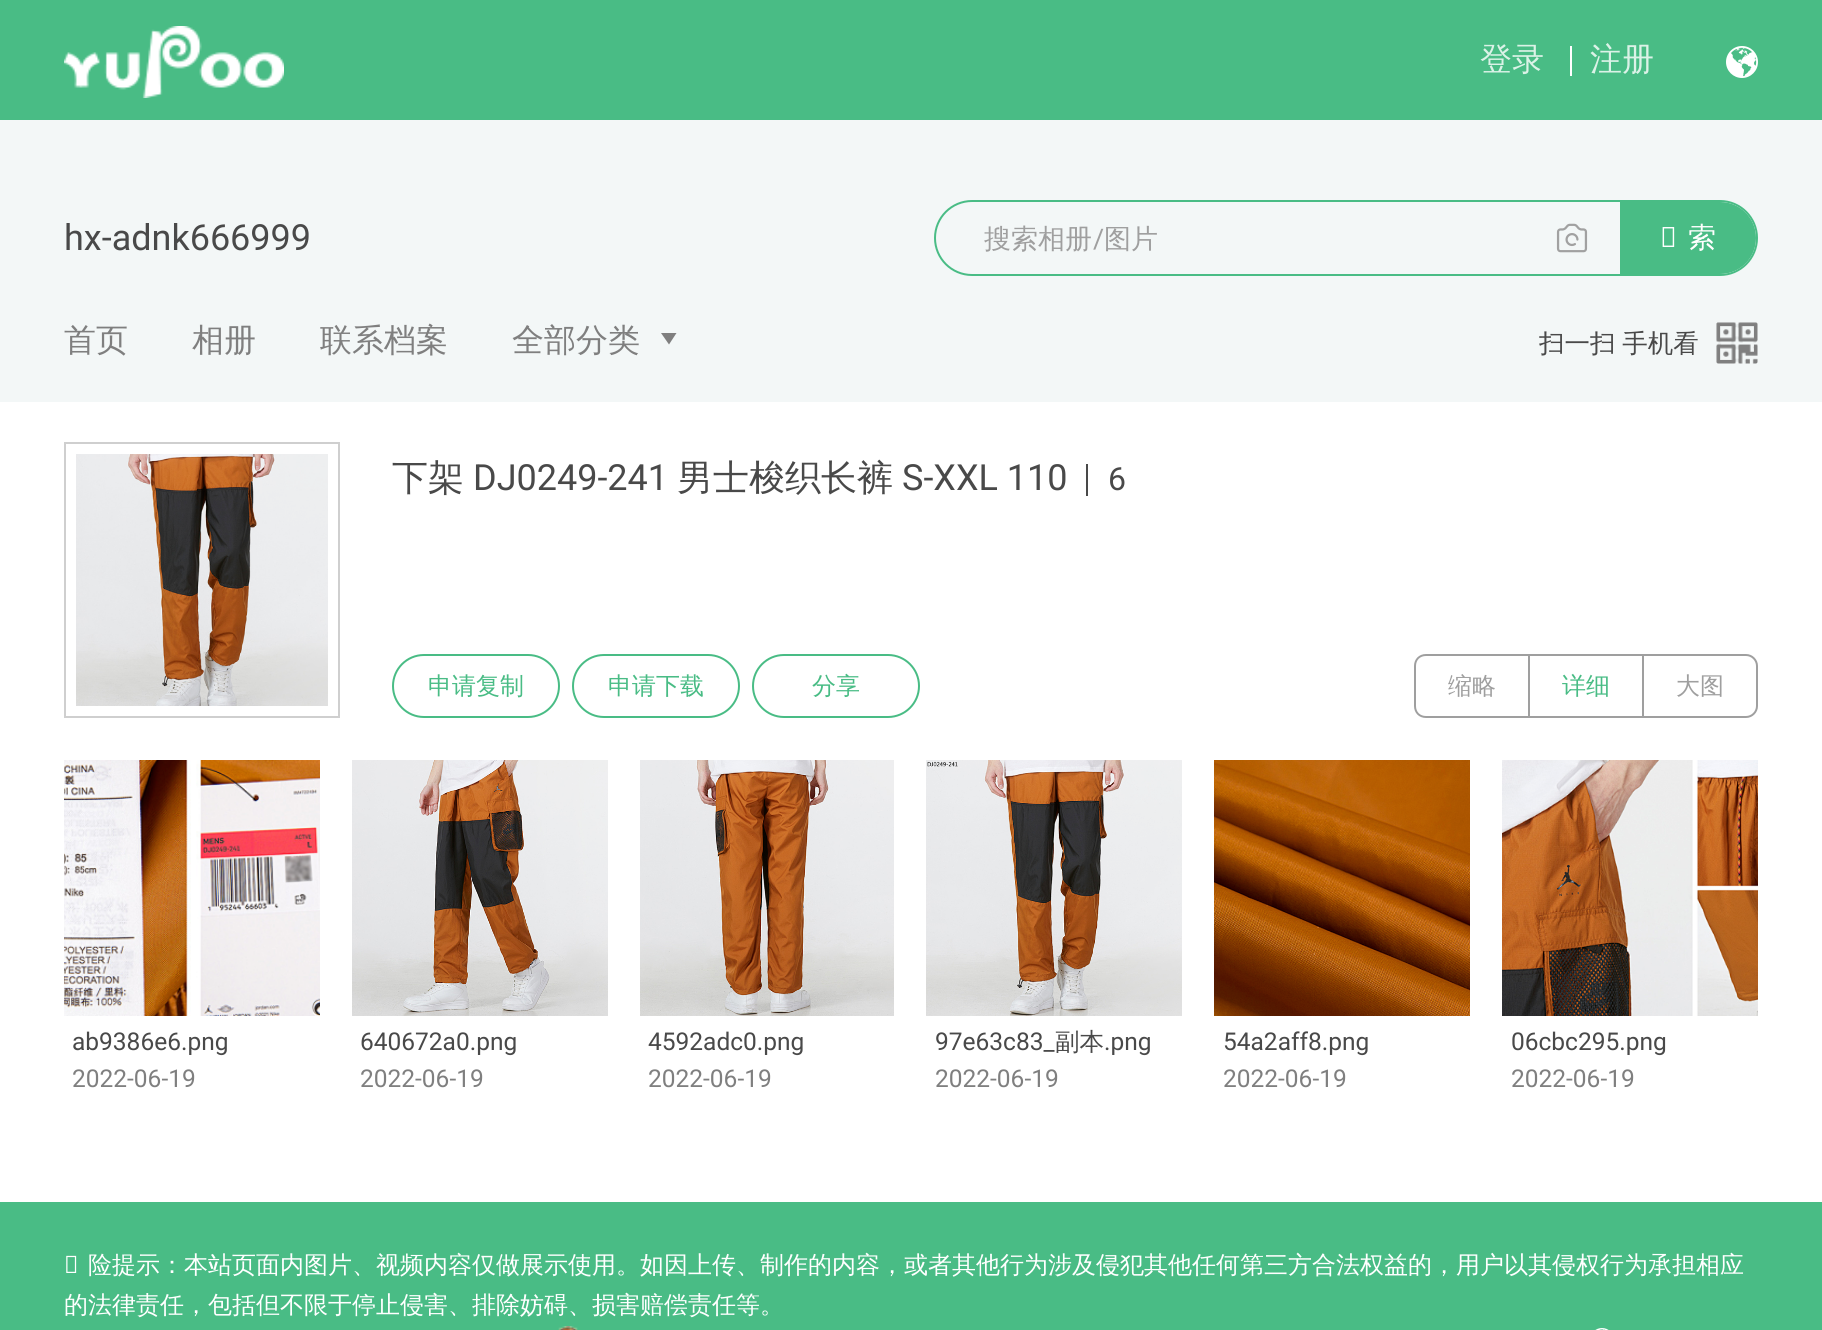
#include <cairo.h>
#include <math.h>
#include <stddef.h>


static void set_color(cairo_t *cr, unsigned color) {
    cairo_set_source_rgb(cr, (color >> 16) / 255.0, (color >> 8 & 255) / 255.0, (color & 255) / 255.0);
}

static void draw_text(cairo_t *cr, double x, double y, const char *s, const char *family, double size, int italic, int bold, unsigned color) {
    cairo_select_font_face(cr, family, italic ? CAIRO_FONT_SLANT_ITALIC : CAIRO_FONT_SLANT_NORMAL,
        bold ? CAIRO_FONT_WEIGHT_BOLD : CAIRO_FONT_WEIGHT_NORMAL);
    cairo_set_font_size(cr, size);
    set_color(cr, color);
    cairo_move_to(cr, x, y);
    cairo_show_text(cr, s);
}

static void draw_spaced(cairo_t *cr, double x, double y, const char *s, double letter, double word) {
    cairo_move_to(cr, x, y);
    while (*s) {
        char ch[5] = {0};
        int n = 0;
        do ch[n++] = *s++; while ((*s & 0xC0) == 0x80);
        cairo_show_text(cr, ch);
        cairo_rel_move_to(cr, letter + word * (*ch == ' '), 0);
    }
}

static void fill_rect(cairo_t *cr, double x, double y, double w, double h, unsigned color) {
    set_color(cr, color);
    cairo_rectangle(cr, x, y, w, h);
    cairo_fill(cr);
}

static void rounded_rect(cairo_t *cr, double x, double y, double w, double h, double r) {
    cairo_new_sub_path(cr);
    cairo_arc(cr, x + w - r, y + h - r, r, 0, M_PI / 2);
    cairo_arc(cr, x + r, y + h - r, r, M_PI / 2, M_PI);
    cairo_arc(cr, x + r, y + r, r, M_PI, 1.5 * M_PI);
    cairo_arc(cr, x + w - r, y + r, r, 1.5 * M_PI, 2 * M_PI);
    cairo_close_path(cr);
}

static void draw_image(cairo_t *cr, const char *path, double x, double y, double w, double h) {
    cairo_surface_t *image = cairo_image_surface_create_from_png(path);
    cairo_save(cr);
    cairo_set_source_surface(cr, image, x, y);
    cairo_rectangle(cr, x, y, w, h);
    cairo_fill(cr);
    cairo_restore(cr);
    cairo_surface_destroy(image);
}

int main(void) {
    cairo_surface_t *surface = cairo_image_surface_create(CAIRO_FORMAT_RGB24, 1822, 1330);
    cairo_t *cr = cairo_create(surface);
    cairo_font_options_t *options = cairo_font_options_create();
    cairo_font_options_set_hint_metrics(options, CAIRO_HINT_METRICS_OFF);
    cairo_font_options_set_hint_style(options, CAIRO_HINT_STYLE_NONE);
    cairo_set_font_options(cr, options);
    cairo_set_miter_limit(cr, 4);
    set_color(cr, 0xFFFFFF);
    cairo_paint(cr);
    fill_rect(cr, 0, 0, 1822, 120, 0x49BC85);
    draw_image(cr, "assets/img1.png", 64, 26, 220, 72);
    draw_text(cr, 1480, 70, "登录", "WenQuanYi Zen Hei Medium", 32, 0, 0, 0xDBF2E7);
    fill_rect(cr, 1570, 46, 2, 30, 0xFFFFFF);
    draw_text(cr, 1590, 70, "注册", "WenQuanYi Zen Hei Medium", 32, 0, 0, 0xDBF2E7);
    draw_image(cr, "assets/img2.png", 1726, 46, 32, 32);
    fill_rect(cr, 0, 120, 1822, 282, 0xF3F7F7);
    draw_text(cr, 64, 250, "hx-adnk666999", "Roboto", 36, 0, 0, 0x494949);
    rounded_rect(cr, 935, 201, 822, 74, 37);
    set_color(cr, 0x49BC85);
    cairo_stroke(cr);
    draw_text(cr, 984, 248, "搜索相册", "WenQuanYi Zen Hei Medium", 27, 0, 0, 0x9F9F9F);
    draw_text(cr, 1093, 248, "/", "Roboto", 27, 0, 0, 0x9F9F9F);
    draw_text(cr, 1104, 248, "图片", "WenQuanYi Zen Hei Medium", 27, 0, 0, 0x9F9F9F);
    draw_image(cr, "assets/img3.png", 1556, 223, 32, 30);
    set_color(cr, 0x49BC85);
    cairo_new_path(cr);
    cairo_move_to(cr, 1621, 203);
    cairo_line_to(cr, 1720, 203);
    cairo_curve_to(cr, 1739.5, 203, 1755, 218.5, 1755, 238);
    cairo_curve_to(cr, 1755, 257.5, 1739.5, 273, 1720, 273);
    cairo_line_to(cr, 1621, 273);
    cairo_close_path(cr);
    cairo_fill_preserve(cr);
    cairo_stroke(cr);
    draw_text(cr, 1660, 247, "搜", "Noto Sans", 28, 0, 0, 0xFFFFFF);
    draw_text(cr, 1688, 247, "索", "WenQuanYi Zen Hei Medium", 28, 0, 0, 0xFFFFFF);
    draw_text(cr, 64, 351, "首页", "WenQuanYi Zen Hei Medium", 32, 0, 0, 0x7F7F7F);
    draw_text(cr, 192, 351, "相册", "WenQuanYi Zen Hei Medium", 32, 0, 0, 0x7F7F7F);
    draw_text(cr, 320, 351, "联系档案", "WenQuanYi Zen Hei Medium", 32, 0, 0, 0x7F7F7F);
    draw_text(cr, 512, 351, "全部分类", "WenQuanYi Zen Hei Medium", 32, 0, 0, 0x7F7F7F);
    cairo_new_path(cr);
    cairo_move_to(cr, 669, 344.5);
    cairo_line_to(cr, 661, 333);
    cairo_line_to(cr, 676.5, 333);
    cairo_close_path(cr);
    cairo_fill(cr);
    cairo_set_font_size(cr, 25.5);
    set_color(cr, 0x494949);
    draw_spaced(cr, 1539, 352, "扫一扫 手机看", 0, -1);
    draw_image(cr, "assets/img4.png", 1716, 322, 42, 42);
    cairo_rectangle(cr, 65, 443, 274, 274);
    set_color(cr, 0xCFCFCF);
    cairo_stroke(cr);
    draw_image(cr, "assets/img5.png", 76, 454, 252, 252);
    draw_text(cr, 392, 490, "下架", "WenQuanYi Zen Hei Medium", 36, 0, 0, 0x494949);
    draw_text(cr, 473, 490, "DJ0249-241", "Roboto", 36, 0, 0, 0x494949);
    draw_text(cr, 677, 490, "男士梭织长裤", "WenQuanYi Zen Hei Medium", 36, 0, 0, 0x494949);
    draw_text(cr, 902, 490, "S-XXL 110", "Roboto", 36, 0, 0, 0x494949);
    fill_rect(cr, 1086, 464, 2, 32, 0x494949);
    draw_text(cr, 1108, 490, "6", "Roboto", 32, 0, 0, 0x494949);
    rounded_rect(cr, 393, 655, 166, 62, 31);
    set_color(cr, 0x49BC85);
    cairo_stroke(cr);
    draw_text(cr, 428, 694, "申请复制", "WenQuanYi Zen Hei Medium", 24, 0, 0, 0x49BC85);
    rounded_rect(cr, 573, 655, 166, 62, 31);
    cairo_stroke(cr);
    draw_text(cr, 608, 694, "申请下载", "WenQuanYi Zen Hei Medium", 24, 0, 0, 0x49BC85);
    rounded_rect(cr, 753, 655, 166, 62, 31);
    cairo_stroke(cr);
    draw_text(cr, 812, 694, "分享", "WenQuanYi Zen Hei Medium", 24, 0, 0, 0x49BC85);
    set_color(cr, 0x9F9F9F);
    cairo_set_fill_rule(cr, CAIRO_FILL_RULE_EVEN_ODD);
    cairo_new_path(cr);
    cairo_move_to(cr, 1426, 654);
    cairo_line_to(cr, 1528, 654);
    cairo_line_to(cr, 1528, 718);
    cairo_line_to(cr, 1426, 718);
    cairo_curve_to(cr, 1419, 718, 1414, 713, 1414, 706);
    cairo_line_to(cr, 1414, 666);
    cairo_curve_to(cr, 1414, 659, 1419, 654, 1426, 654);
    cairo_close_path(cr);
    cairo_move_to(cr, 1426, 656);
    cairo_line_to(cr, 1528, 656);
    cairo_line_to(cr, 1528, 716);
    cairo_line_to(cr, 1426, 716);
    cairo_curve_to(cr, 1420, 716, 1416, 712, 1416, 706);
    cairo_line_to(cr, 1416, 666);
    cairo_curve_to(cr, 1416, 660, 1420, 656, 1426, 656);
    cairo_close_path(cr);
    cairo_fill(cr);
    draw_text(cr, 1448, 694, "缩略", "WenQuanYi Zen Hei Medium", 24, 0, 0, 0x9F9F9F);
    fill_rect(cr, 1528, 654, 114, 2, 0x9F9F9F);
    fill_rect(cr, 1528, 716, 114, 2, 0x9F9F9F);
    fill_rect(cr, 1528, 654, 2, 64, 0x9F9F9F);
    draw_text(cr, 1562, 694, "详细", "WenQuanYi Zen Hei Medium", 24, 0, 0, 0x49BC85);
    cairo_new_path(cr);
    cairo_move_to(cr, 1643, 655);
    cairo_line_to(cr, 1746, 655);
    cairo_curve_to(cr, 1752, 655, 1757, 660, 1757, 666);
    cairo_line_to(cr, 1757, 706);
    cairo_curve_to(cr, 1757, 712, 1752, 717, 1746, 717);
    cairo_line_to(cr, 1643, 717);
    cairo_close_path(cr);
    set_color(cr, 0x9F9F9F);
    cairo_stroke(cr);
    draw_text(cr, 1676, 694, "大图", "WenQuanYi Zen Hei Medium", 24, 0, 0, 0x9F9F9F);
    draw_image(cr, "assets/img6.png", 64, 760, 256, 256);
    draw_text(cr, 72, 1050, "ab9386e6.png", "Roboto", 24.5, 0, 0, 0x494949);
    draw_text(cr, 72, 1087, "2022-06-19", "Roboto", 24.5, 0, 0, 0x7F7F7F);
    draw_image(cr, "assets/img7.png", 352, 760, 256, 256);
    draw_text(cr, 360, 1050, "640672a0.png", "Roboto", 24.5, 0, 0, 0x494949);
    draw_text(cr, 360, 1087, "2022-06-19", "Roboto", 24.5, 0, 0, 0x7F7F7F);
    draw_image(cr, "assets/img8.png", 640, 760, 254, 256);
    draw_text(cr, 648, 1050, "4592adc0.png", "Roboto", 24.5, 0, 0, 0x494949);
    draw_text(cr, 648, 1087, "2022-06-19", "Roboto", 24.5, 0, 0, 0x7F7F7F);
    draw_image(cr, "assets/img9.png", 926, 760, 256, 256);
    draw_text(cr, 935, 1050, "97e63c83_", "Roboto", 24.5, 0, 0, 0x494949);
    draw_text(cr, 1055, 1050, "副本", "WenQuanYi Zen Hei Medium", 24.5, 0, 0, 0x494949);
    draw_text(cr, 1104, 1050, ".png", "Roboto", 24.5, 0, 0, 0x494949);
    draw_text(cr, 935, 1087, "2022-06-19", "Roboto", 24.5, 0, 0, 0x7F7F7F);
    draw_image(cr, "assets/img10.png", 1214, 760, 256, 256);
    draw_text(cr, 1223, 1050, "54a2aff8.png", "Roboto", 24.5, 0, 0, 0x494949);
    draw_text(cr, 1223, 1087, "2022-06-19", "Roboto", 24.5, 0, 0, 0x7F7F7F);
    draw_image(cr, "assets/img11.png", 1502, 760, 256, 256);
    draw_text(cr, 1511, 1050, "06cbc295.png", "Roboto", 24.5, 0, 0, 0x494949);
    draw_text(cr, 1511, 1087, "2022-06-19", "Roboto", 24.5, 0, 0, 0x7F7F7F);
    fill_rect(cr, 0, 1202, 1822, 128, 0x49BC85);
    draw_text(cr, 64, 1273, "风", "Noto Sans", 24, 0, 0, 0xFFFFFF);
    draw_text(cr, 88, 1273, "险提示：本站页面内图片、视频内容仅做展示使用。如因上传、制作的内容，或者其他行为涉及侵犯其他任何第三方合法权益的，用户以其侵权行为承担相应", "WenQuanYi Zen Hei Medium", 24, 0, 0, 0xFFFFFF);
    draw_text(cr, 64, 1313, "的法律责任，包括但不限于停止侵害、排除妨碍、损害赔偿责任等。", "WenQuanYi Zen Hei Medium", 24, 0, 0, 0xFFFFFF);
    draw_image(cr, "assets/img12.png", 558, 1326, 20, 4);
    draw_image(cr, "assets/img13.png", 1595, 1328, 14, 2);
    cairo_surface_write_to_png(surface, "output.png");
    cairo_font_options_destroy(options);
    cairo_destroy(cr);
    cairo_surface_destroy(surface);
    return 0;
}
